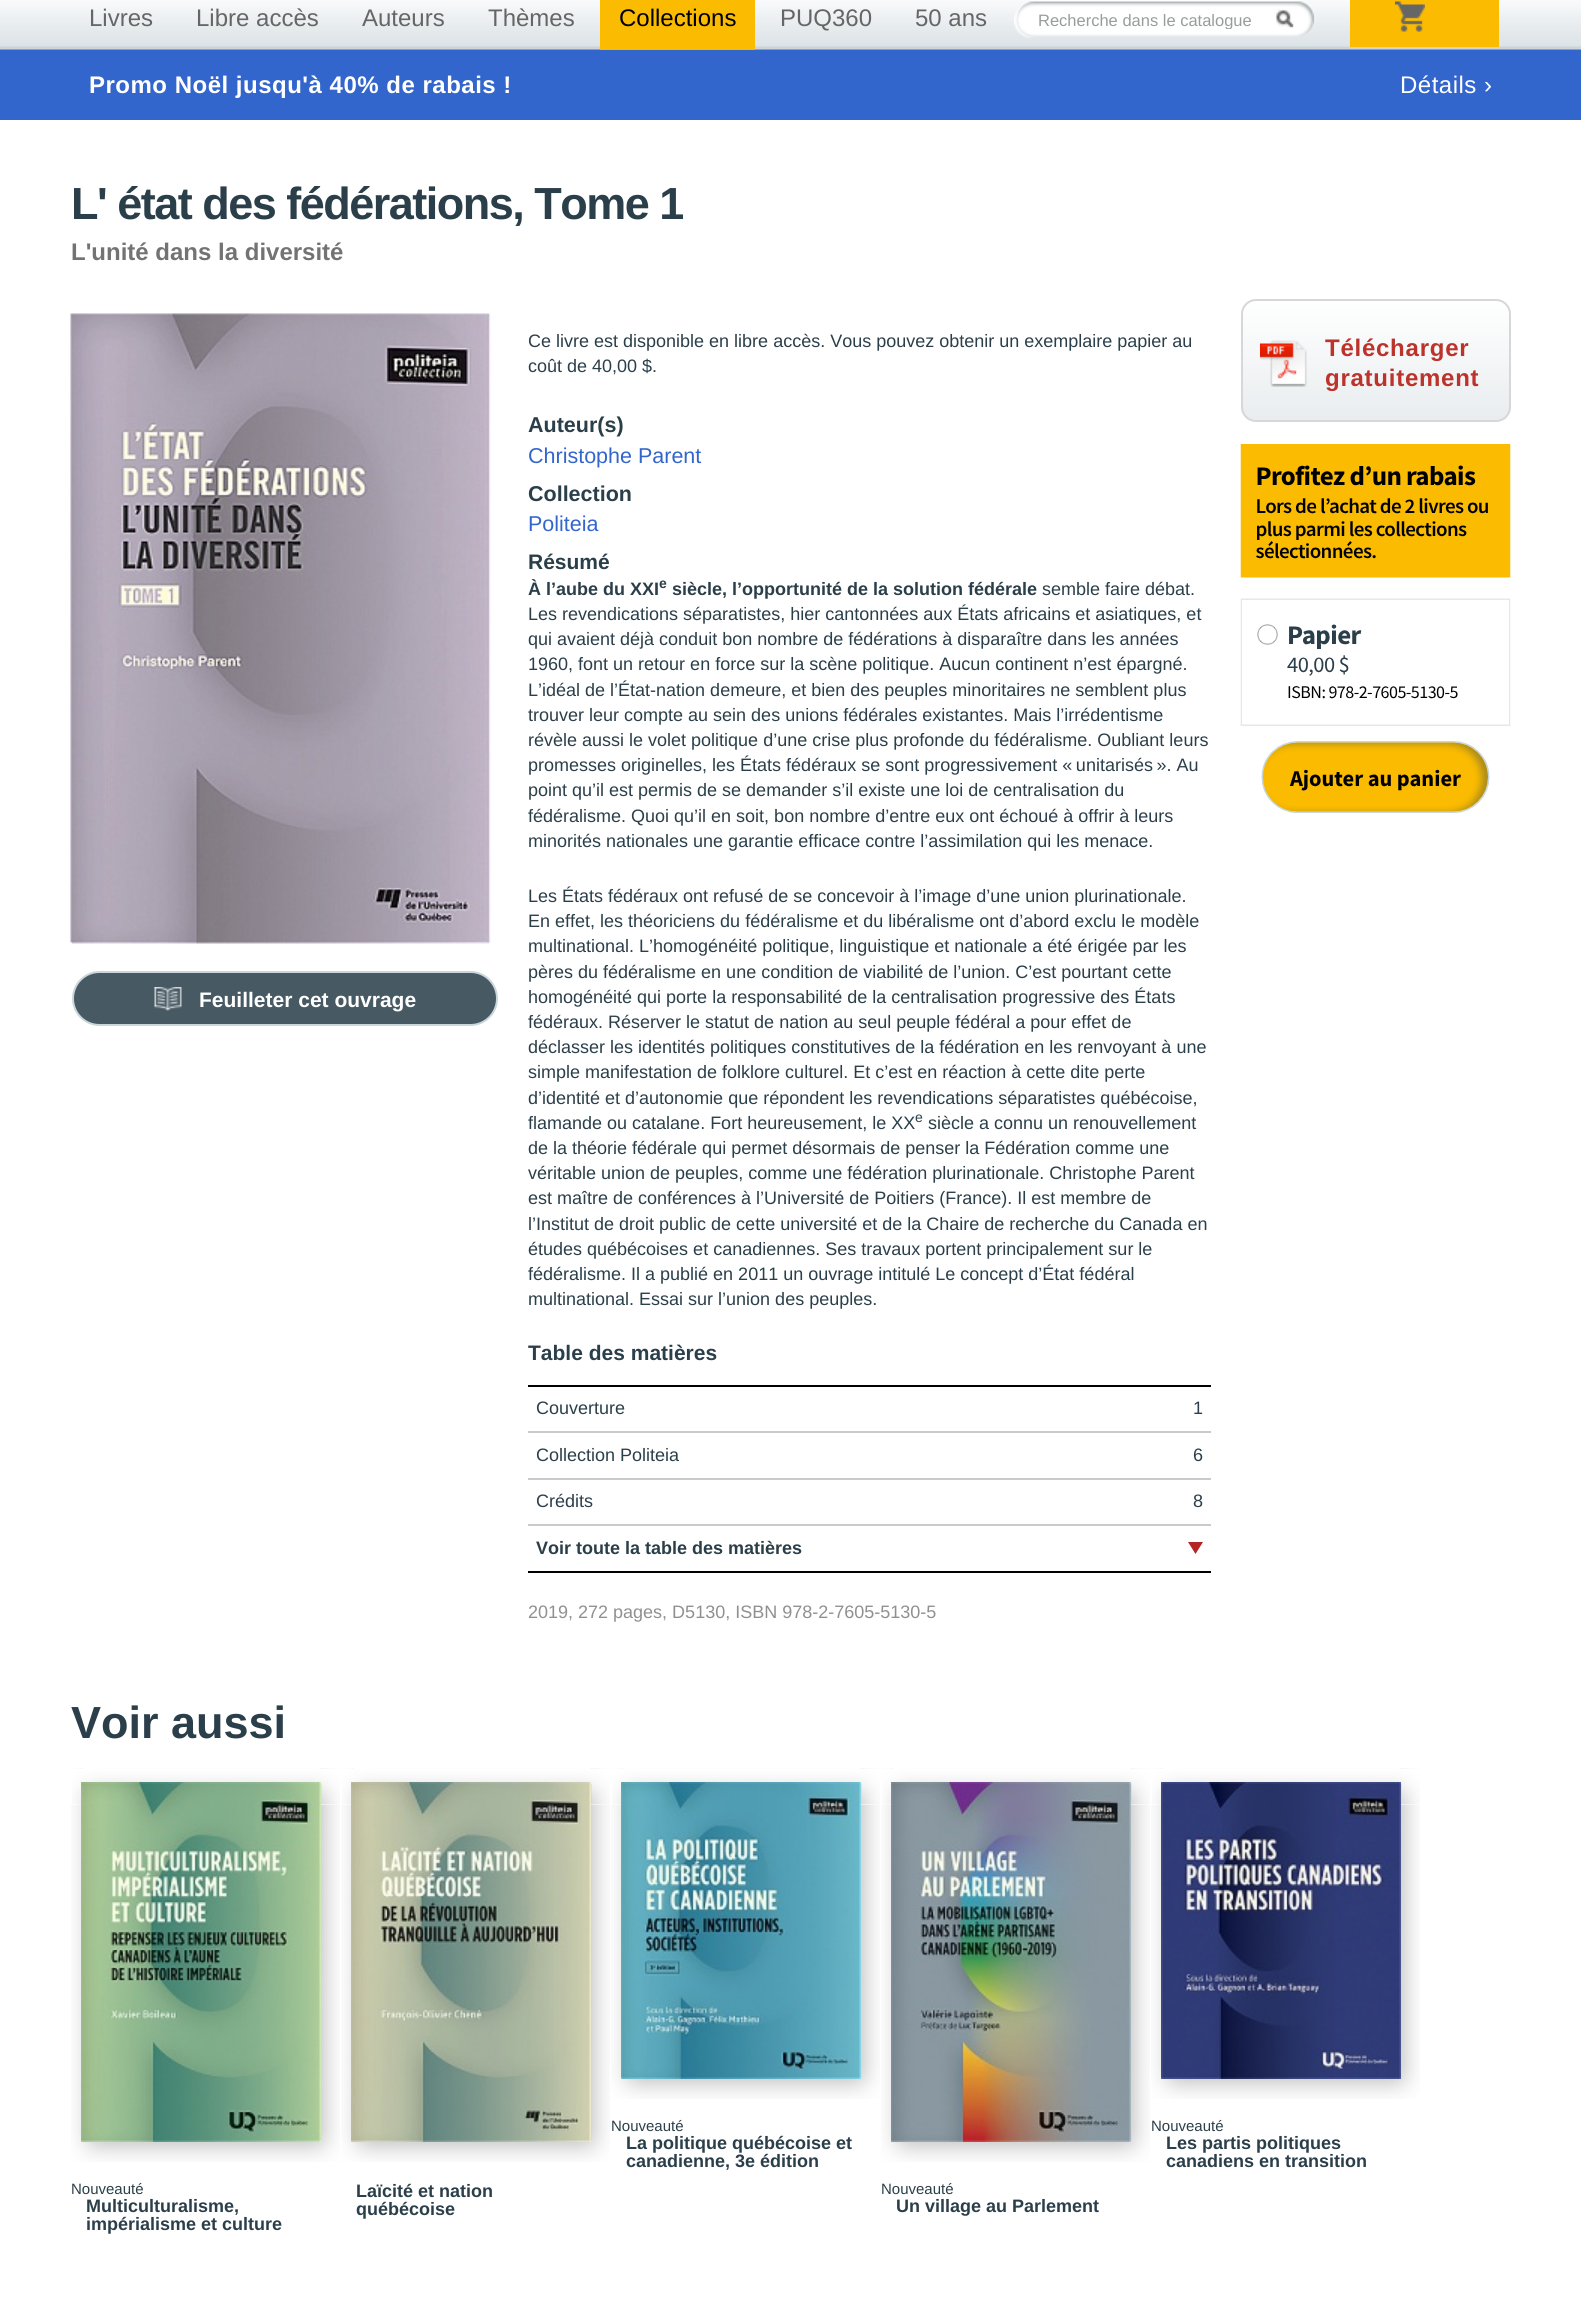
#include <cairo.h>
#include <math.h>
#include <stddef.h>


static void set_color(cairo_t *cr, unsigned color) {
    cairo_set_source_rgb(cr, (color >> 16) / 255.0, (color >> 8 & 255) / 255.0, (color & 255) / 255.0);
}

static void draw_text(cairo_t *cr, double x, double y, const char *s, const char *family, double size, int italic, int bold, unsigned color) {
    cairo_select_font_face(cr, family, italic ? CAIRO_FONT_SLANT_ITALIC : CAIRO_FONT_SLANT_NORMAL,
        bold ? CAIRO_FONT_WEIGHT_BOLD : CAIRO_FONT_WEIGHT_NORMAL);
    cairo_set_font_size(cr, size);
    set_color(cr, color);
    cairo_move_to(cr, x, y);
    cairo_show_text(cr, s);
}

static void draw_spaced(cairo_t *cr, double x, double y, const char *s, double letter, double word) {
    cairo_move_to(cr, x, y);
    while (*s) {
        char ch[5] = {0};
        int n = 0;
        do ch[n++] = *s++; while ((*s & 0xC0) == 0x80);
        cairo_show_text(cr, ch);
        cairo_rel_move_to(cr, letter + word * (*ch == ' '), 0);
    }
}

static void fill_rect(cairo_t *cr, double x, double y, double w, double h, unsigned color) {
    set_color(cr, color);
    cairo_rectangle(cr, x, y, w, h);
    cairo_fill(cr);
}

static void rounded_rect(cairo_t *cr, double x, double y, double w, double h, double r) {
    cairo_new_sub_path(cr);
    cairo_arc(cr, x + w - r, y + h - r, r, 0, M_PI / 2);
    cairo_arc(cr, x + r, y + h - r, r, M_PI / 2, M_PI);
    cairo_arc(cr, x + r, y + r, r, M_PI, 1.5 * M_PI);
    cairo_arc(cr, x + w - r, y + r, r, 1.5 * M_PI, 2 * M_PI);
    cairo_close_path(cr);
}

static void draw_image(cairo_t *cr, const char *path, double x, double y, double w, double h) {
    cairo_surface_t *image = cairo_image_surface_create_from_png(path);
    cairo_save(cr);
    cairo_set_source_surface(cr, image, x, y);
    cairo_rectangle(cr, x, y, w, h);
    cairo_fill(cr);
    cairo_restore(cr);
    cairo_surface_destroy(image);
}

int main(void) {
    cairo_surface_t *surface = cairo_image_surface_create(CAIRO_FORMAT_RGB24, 1581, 2312);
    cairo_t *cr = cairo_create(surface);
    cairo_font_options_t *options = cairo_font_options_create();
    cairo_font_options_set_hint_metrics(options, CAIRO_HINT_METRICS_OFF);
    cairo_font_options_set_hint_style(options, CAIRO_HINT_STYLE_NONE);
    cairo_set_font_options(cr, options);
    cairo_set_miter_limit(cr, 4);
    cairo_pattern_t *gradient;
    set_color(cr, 0xFFFFFF);
    cairo_paint(cr);
    fill_rect(cr, 0, 49, 1581, 1, 0x666666);
    draw_image(cr, "assets/img1.png", 0, 0, 1581, 50);
    draw_text(cr, 89, 26, "Livres", "Liberation Sans", 24, 0, 0, 0x666666);
    draw_text(cr, 196, 26, "Libre accès", "Liberation Sans", 24, 0, 0, 0x666666);
    draw_text(cr, 362, 26, "Auteurs", "Liberation Sans", 24, 0, 0, 0x666666);
    draw_text(cr, 488, 26, "Thèmes", "Liberation Sans", 24, 0, 0, 0x666666);
    fill_rect(cr, 600, 0, 155, 50, 0xFABB00);
    draw_text(cr, 619, 26, "Collections", "Liberation Sans", 24, 0, 0, 0x000000);
    draw_text(cr, 780, 26, "PUQ360", "Liberation Sans", 24, 0, 0, 0x666666);
    draw_text(cr, 915, 26, "50 ans", "Liberation Sans", 24, 0, 0, 0x666666);
    draw_image(cr, "assets/img2.png", 1014, 0, 302, 38);
    cairo_save(cr);
    cairo_rectangle(cr, 1038, 11, 237, 18);
    cairo_clip(cr);
    draw_text(cr, 1038, 26, "Recherche dans le catalogue", "Liberation Sans", 16.5, 0, 0, 0x989C9D);
    cairo_restore(cr);
    fill_rect(cr, 1350, 0, 149, 47, 0xFABB00);
    draw_image(cr, "assets/img3.png", 1395, 1, 30, 31);
    fill_rect(cr, 0, 50, 1581, 70, 0x3366CC);
    cairo_select_font_face(cr, "Liberation Sans", CAIRO_FONT_SLANT_NORMAL, CAIRO_FONT_WEIGHT_BOLD);
    set_color(cr, 0xFFFFFF);
    draw_spaced(cr, 89, 93, "Promo Noël jusqu'à 40% de rabais !", 0.5, 0);
    cairo_select_font_face(cr, "Liberation Sans", CAIRO_FONT_SLANT_NORMAL, CAIRO_FONT_WEIGHT_NORMAL);
    draw_spaced(cr, 1400, 93, "Détails ›", 0.5, 0);
    cairo_select_font_face(cr, "Liberation Sans", CAIRO_FONT_SLANT_NORMAL, CAIRO_FONT_WEIGHT_BOLD);
    cairo_set_font_size(cr, 45);
    set_color(cr, 0x2B3F4A);
    draw_spaced(cr, 71, 219, "L' état des fédérations, Tome 1", -1.5, 0);
    draw_text(cr, 71, 260, "L'unité dans la diversité", "Liberation Sans", 24, 0, 1, 0x737373);
    draw_text(cr, 528, 347, "Ce livre est disponible en libre accès. Vous pouvez obtenir un exemplaire papier au", "Liberation Sans", 18, 0, 0, 0x2B3F4A);
    draw_text(cr, 528, 372, "coût de 40,00 $.", "Liberation Sans", 18, 0, 0, 0x2B3F4A);
    draw_text(cr, 528, 432, "Auteur(s)", "Liberation Sans", 21.5, 0, 1, 0x2B3F4A);
    draw_text(cr, 528, 463, "Christophe Parent", "Liberation Sans", 21.5, 0, 0, 0x3366CC);
    draw_text(cr, 528, 501, "Collection", "Liberation Sans", 21.5, 0, 1, 0x2B3F4A);
    draw_text(cr, 528, 531, "Politeia", "Liberation Sans", 21.5, 0, 0, 0x3366CC);
    draw_text(cr, 528, 569, "Résumé", "Liberation Sans", 21, 0, 1, 0x2B3F4A);
    draw_text(cr, 528, 595, "À l’aube du XXI", "Liberation Sans", 18, 0, 1, 0x2B3F4A);
    draw_text(cr, 659, 588, "e", "Liberation Sans", 14, 0, 1, 0x2B3F4A);
    draw_text(cr, 672, 595, "siècle, l’opportunité de la solution fédérale", "Liberation Sans", 18, 0, 1, 0x2B3F4A);
    draw_text(cr, 1042, 595, "semble faire débat.", "Liberation Sans", 18, 0, 0, 0x2B3F4A);
    draw_text(cr, 528, 620, "Les revendications séparatistes, hier cantonnées aux États africains et asiatiques, et", "Liberation Sans", 18, 0, 0, 0x2B3F4A);
    draw_text(cr, 528, 645, "qui avaient déjà conduit bon nombre de fédérations à disparaître dans les années", "Liberation Sans", 18, 0, 0, 0x2B3F4A);
    draw_text(cr, 528, 670, "1960, font un retour en force sur la scène politique. Aucun continent n’est épargné.", "Liberation Sans", 18, 0, 0, 0x2B3F4A);
    draw_text(cr, 528, 696, "L’idéal de l’État-nation demeure, et bien des peuples minoritaires ne semblent plus", "Liberation Sans", 18, 0, 0, 0x2B3F4A);
    draw_text(cr, 528, 721, "trouver leur compte au sein des unions fédérales existantes. Mais l’irrédentisme", "Liberation Sans", 18, 0, 0, 0x2B3F4A);
    draw_text(cr, 528, 746, "révèle aussi le volet politique d’une crise plus profonde du fédéralisme. Oubliant leurs", "Liberation Sans", 18, 0, 0, 0x2B3F4A);
    draw_text(cr, 528, 771, "promesses originelles, les États fédéraux se sont progressivement « unitarisés ». Au", "Liberation Sans", 18, 0, 0, 0x2B3F4A);
    draw_text(cr, 528, 796, "point qu’il est permis de se demander s’il existe une loi de centralisation du", "Liberation Sans", 18, 0, 0, 0x2B3F4A);
    draw_text(cr, 528, 822, "fédéralisme. Quoi qu’il en soit, bon nombre d’entre eux ont échoué à offrir à leurs", "Liberation Sans", 18, 0, 0, 0x2B3F4A);
    draw_text(cr, 528, 847, "minorités nationales une garantie efficace contre l’assimilation qui les menace.", "Liberation Sans", 18, 0, 0, 0x2B3F4A);
    draw_text(cr, 528, 902, "Les États fédéraux ont refusé de se concevoir à l’image d’une union plurinationale.", "Liberation Sans", 18, 0, 0, 0x2B3F4A);
    draw_text(cr, 528, 927, "En effet, les théoriciens du fédéralisme et du libéralisme ont d’abord exclu le modèle", "Liberation Sans", 18, 0, 0, 0x2B3F4A);
    draw_text(cr, 528, 952, "multinational. L’homogénéité politique, linguistique et nationale a été érigée par les", "Liberation Sans", 18, 0, 0, 0x2B3F4A);
    draw_text(cr, 528, 978, "pères du fédéralisme en une condition de viabilité de l’union. C’est pourtant cette", "Liberation Sans", 18, 0, 0, 0x2B3F4A);
    draw_text(cr, 528, 1003, "homogénéité qui porte la responsabilité de la centralisation progressive des États", "Liberation Sans", 18, 0, 0, 0x2B3F4A);
    draw_text(cr, 528, 1028, "fédéraux. Réserver le statut de nation au seul peuple fédéral a pour effet de", "Liberation Sans", 18, 0, 0, 0x2B3F4A);
    draw_text(cr, 528, 1053, "déclasser les identités politiques constitutives de la fédération en les renvoyant à une", "Liberation Sans", 18, 0, 0, 0x2B3F4A);
    draw_text(cr, 528, 1078, "simple manifestation de folklore culturel. Et c’est en réaction à cette dite perte", "Liberation Sans", 18, 0, 0, 0x2B3F4A);
    draw_text(cr, 528, 1104, "d’identité et d’autonomie que répondent les revendications séparatistes québécoise,", "Liberation Sans", 18, 0, 0, 0x2B3F4A);
    draw_text(cr, 528, 1129, "flamande ou catalane. Fort heureusement, le XX", "Liberation Sans", 18, 0, 0, 0x2B3F4A);
    draw_text(cr, 915, 1122, "e", "Liberation Sans", 14, 0, 0, 0x2B3F4A);
    draw_text(cr, 928, 1129, "siècle a connu un renouvellement", "Liberation Sans", 18, 0, 0, 0x2B3F4A);
    draw_text(cr, 528, 1154, "de la théorie fédérale qui permet désormais de penser la Fédération comme une", "Liberation Sans", 18, 0, 0, 0x2B3F4A);
    draw_text(cr, 528, 1179, "véritable union de peuples, comme une fédération plurinationale. Christophe Parent", "Liberation Sans", 18, 0, 0, 0x2B3F4A);
    draw_text(cr, 528, 1204, "est maître de conférences à l’Université de Poitiers (France). Il est membre de", "Liberation Sans", 18, 0, 0, 0x2B3F4A);
    draw_text(cr, 528, 1230, "l’Institut de droit public de cette université et de la Chaire de recherche du Canada en", "Liberation Sans", 18, 0, 0, 0x2B3F4A);
    draw_text(cr, 528, 1255, "études québécoises et canadiennes. Ses travaux portent principalement sur le", "Liberation Sans", 18, 0, 0, 0x2B3F4A);
    draw_text(cr, 528, 1280, "fédéralisme. Il a publié en 2011 un ouvrage intitulé Le concept d’État fédéral", "Liberation Sans", 18, 0, 0, 0x2B3F4A);
    draw_text(cr, 528, 1305, "multinational. Essai sur l’union des peuples.", "Liberation Sans", 18, 0, 0, 0x2B3F4A);
    draw_text(cr, 528, 1360, "Table des matières", "Liberation Sans", 21, 0, 1, 0x2B3F4A);
    fill_rect(cr, 528, 1571, 683, 2, 0x000000);
    fill_rect(cr, 528, 1385, 683, 2, 0x000000);
    draw_text(cr, 536, 1414, "Couverture", "Liberation Sans", 18, 0, 0, 0x2B3F4A);
    draw_text(cr, 1193, 1414, "1", "Liberation Sans", 18, 0, 0, 0x2B3F4A);
    fill_rect(cr, 528, 1431, 683, 2, 0xCACACA);
    draw_text(cr, 536, 1461, "Collection Politeia", "Liberation Sans", 18, 0, 0, 0x2B3F4A);
    draw_text(cr, 1193, 1461, "6", "Liberation Sans", 18, 0, 0, 0x2B3F4A);
    fill_rect(cr, 528, 1478, 683, 2, 0xCACACA);
    draw_text(cr, 536, 1507, "Crédits", "Liberation Sans", 18, 0, 0, 0x2B3F4A);
    draw_text(cr, 1193, 1507, "8", "Liberation Sans", 18, 0, 0, 0x2B3F4A);
    fill_rect(cr, 528, 1524, 683, 2, 0xCACACA);
    draw_text(cr, 536, 1554, "Voir toute la table des matières", "Liberation Sans", 18, 0, 1, 0x2B3F4A);
    set_color(cr, 0xB42525);
    cairo_new_path(cr);
    cairo_move_to(cr, 1188, 1542);
    cairo_line_to(cr, 1203, 1542);
    cairo_line_to(cr, 1195.5, 1554);
    cairo_close_path(cr);
    cairo_fill(cr);
    draw_text(cr, 528, 1618, "2019, 272 pages, D5130, ISBN 978-2-7605-5130-5", "Liberation Sans", 18, 0, 0, 0x909090);
    cairo_save(cr);
    rounded_rect(cr, 1241, 299, 270, 123, 15);
    cairo_clip(cr);
    gradient = cairo_pattern_create_linear(1376, 300, 1376, 420);
    cairo_pattern_add_color_stop_rgba(gradient, 0, 1, 1, 1, 1);
    cairo_pattern_add_color_stop_rgba(gradient, 1, 0.914, 0.929, 0.937, 1);
    cairo_set_source(cr, gradient);
    cairo_pattern_destroy(gradient);
    cairo_rectangle(cr, 1241, 300, 270, 120);
    cairo_fill(cr);
    cairo_restore(cr);
    rounded_rect(cr, 1242, 300, 268, 121, 14);
    set_color(cr, 0xD6D7D8);
    cairo_stroke(cr);
    draw_image(cr, "assets/img4.png", 1260, 340, 47, 47);
    cairo_select_font_face(cr, "Liberation Sans", CAIRO_FONT_SLANT_NORMAL, CAIRO_FONT_WEIGHT_BOLD);
    cairo_set_font_size(cr, 24);
    set_color(cr, 0xBB332A);
    draw_spaced(cr, 1325, 356, "Télécharger", 0.75, 0);
    draw_spaced(cr, 1325, 386, "gratuitement", 0.75, 0);
    draw_image(cr, "assets/img5.png", 1240, 444, 271, 369);
    draw_image(cr, "assets/img6.png", 70, 313, 421, 631);
    set_color(cr, 0x475962);
    rounded_rect(cr, 73, 972, 424, 53, 26.5);
    cairo_fill_preserve(cr);
    set_color(cr, 0xC9D6DC);
    cairo_stroke(cr);
    draw_image(cr, "assets/img7.png", 154, 987, 28, 24);
    draw_text(cr, 199, 1007, "Feuilleter cet ouvrage", "Liberation Sans", 21, 0, 1, 0xFFFFFF);
    draw_text(cr, 71, 1738, "Voir aussi", "Liberation Sans", 45, 0, 1, 0x2B3F4A);
    draw_image(cr, "assets/img8.png", 611, 1768, 269, 331);
    fill_rect(cr, 611, 1769, 269, 36, 0xFFFFFF);
    draw_image(cr, "assets/img9.png", 612, 1768, 268, 37);
    draw_image(cr, "assets/img10.png", 621, 1782, 240, 297);
    draw_text(cr, 611, 2131, "Nouveauté", "Liberation Sans", 15, 0, 0, 0x2B3F4A);
    draw_text(cr, 626, 2149, "La politique québécoise et", "Liberation Sans", 18, 0, 1, 0x2B3F4A);
    draw_text(cr, 626, 2167, "canadienne, 3e édition", "Liberation Sans", 18, 0, 1, 0x2B3F4A);
    draw_image(cr, "assets/img8.png", 1151, 1768, 269, 331);
    fill_rect(cr, 1151, 1769, 269, 36, 0xFFFFFF);
    draw_image(cr, "assets/img9.png", 1152, 1768, 268, 37);
    draw_image(cr, "assets/img11.png", 1161, 1782, 240, 297);
    draw_text(cr, 1151, 2131, "Nouveauté", "Liberation Sans", 15, 0, 0, 0x2B3F4A);
    draw_text(cr, 1166, 2149, "Les partis politiques", "Liberation Sans", 18, 0, 1, 0x2B3F4A);
    draw_text(cr, 1166, 2167, "canadiens en transition", "Liberation Sans", 18, 0, 1, 0x2B3F4A);
    draw_image(cr, "assets/img12.png", 71, 1768, 269, 394);
    fill_rect(cr, 71, 1769, 269, 36, 0xFFFFFF);
    draw_image(cr, "assets/img13.png", 72, 1768, 268, 37);
    draw_image(cr, "assets/img14.png", 81, 1782, 240, 360);
    draw_text(cr, 71, 2194, "Nouveauté", "Liberation Sans", 15, 0, 0, 0x2B3F4A);
    draw_text(cr, 86, 2212, "Multiculturalisme,", "Liberation Sans", 18, 0, 1, 0x2B3F4A);
    draw_text(cr, 86, 2230, "impérialisme et culture", "Liberation Sans", 18, 0, 1, 0x2B3F4A);
    draw_image(cr, "assets/img12.png", 341, 1768, 269, 394);
    fill_rect(cr, 341, 1769, 269, 36, 0xFFFFFF);
    draw_image(cr, "assets/img13.png", 342, 1768, 268, 37);
    draw_image(cr, "assets/img15.png", 351, 1782, 240, 360);
    draw_text(cr, 356, 2197, "Laïcité et nation", "Liberation Sans", 18, 0, 1, 0x2B3F4A);
    draw_text(cr, 356, 2215, "québécoise", "Liberation Sans", 18, 0, 1, 0x2B3F4A);
    draw_image(cr, "assets/img12.png", 881, 1768, 269, 394);
    fill_rect(cr, 881, 1769, 269, 36, 0xFFFFFF);
    draw_image(cr, "assets/img13.png", 882, 1768, 268, 37);
    draw_image(cr, "assets/img16.png", 891, 1782, 240, 360);
    draw_text(cr, 881, 2194, "Nouveauté", "Liberation Sans", 15, 0, 0, 0x2B3F4A);
    draw_text(cr, 896, 2212, "Un village au Parlement", "Liberation Sans", 18, 0, 1, 0x2B3F4A);
    cairo_surface_write_to_png(surface, "output.png");
    cairo_font_options_destroy(options);
    cairo_destroy(cr);
    cairo_surface_destroy(surface);
    return 0;
}
